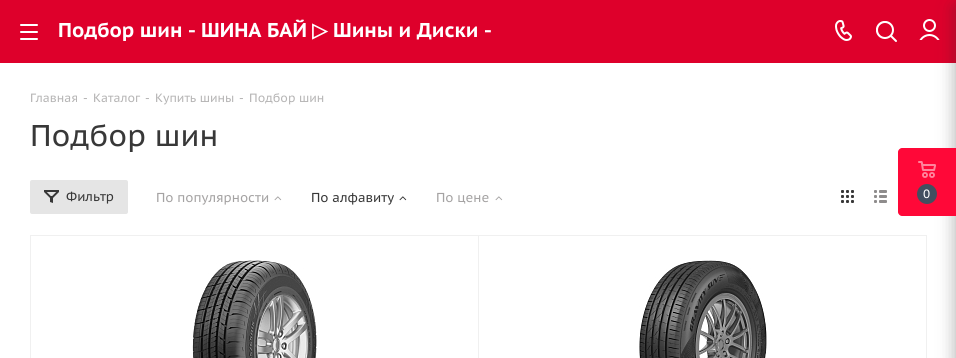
#include <cairo.h>
#include <math.h>
#include <stddef.h>


static void set_color(cairo_t *cr, unsigned color) {
    cairo_set_source_rgb(cr, (color >> 16) / 255.0, (color >> 8 & 255) / 255.0, (color & 255) / 255.0);
}

static void draw_text(cairo_t *cr, double x, double y, const char *s, const char *family, double size, int italic, int bold, unsigned color) {
    cairo_select_font_face(cr, family, italic ? CAIRO_FONT_SLANT_ITALIC : CAIRO_FONT_SLANT_NORMAL,
        bold ? CAIRO_FONT_WEIGHT_BOLD : CAIRO_FONT_WEIGHT_NORMAL);
    cairo_set_font_size(cr, size);
    set_color(cr, color);
    cairo_move_to(cr, x, y);
    cairo_show_text(cr, s);
}

static void fill_rect(cairo_t *cr, double x, double y, double w, double h, unsigned color) {
    set_color(cr, color);
    cairo_rectangle(cr, x, y, w, h);
    cairo_fill(cr);
}

static void rounded_rect(cairo_t *cr, double x, double y, double w, double h, double r) {
    cairo_new_sub_path(cr);
    cairo_arc(cr, x + w - r, y + h - r, r, 0, M_PI / 2);
    cairo_arc(cr, x + r, y + h - r, r, M_PI / 2, M_PI);
    cairo_arc(cr, x + r, y + r, r, M_PI, 1.5 * M_PI);
    cairo_arc(cr, x + w - r, y + r, r, 1.5 * M_PI, 2 * M_PI);
    cairo_close_path(cr);
}

static void draw_shadow(cairo_t *cr, double x, double y, double w, double h, double r, double blur, double alpha) {
    cairo_push_group_with_content(cr, CAIRO_CONTENT_ALPHA);
    cairo_set_operator(cr, CAIRO_OPERATOR_SOURCE);
    for (int i = 15; i >= -15 && fmin(w, h) + blur * i / 3 > 0; i -= 2) {
        double e = blur * i / 6;
        cairo_set_source_rgba(cr, 0, 0, 0, alpha * erfc((i - 1) / 8.5) / 2);
        rounded_rect(cr, x - e, y - e, w + 2 * e, h + 2 * e, fmax(0, fmin(r + e + blur * .6, fmin(w, h) / 2 + e)));
        cairo_fill(cr);
    }
    cairo_pattern_t *soft = cairo_pop_group(cr);
    cairo_mask(cr, soft);
    cairo_pattern_destroy(soft);
}

static void draw_image(cairo_t *cr, const char *path, double x, double y, double w, double h) {
    cairo_surface_t *image = cairo_image_surface_create_from_png(path);
    cairo_save(cr);
    cairo_set_source_surface(cr, image, x, y);
    cairo_rectangle(cr, x, y, w, h);
    cairo_fill(cr);
    cairo_restore(cr);
    cairo_surface_destroy(image);
}

int main(void) {
    cairo_surface_t *surface = cairo_image_surface_create(CAIRO_FORMAT_RGB24, 956, 358);
    cairo_t *cr = cairo_create(surface);
    cairo_font_options_t *options = cairo_font_options_create();
    cairo_font_options_set_hint_metrics(options, CAIRO_HINT_METRICS_OFF);
    cairo_font_options_set_hint_style(options, CAIRO_HINT_STYLE_NONE);
    cairo_set_font_options(cr, options);
    cairo_set_miter_limit(cr, 4);
    set_color(cr, 0xDE002B);
    cairo_paint(cr);
    draw_image(cr, "assets/img1.png", 20, 24, 18, 16);
    draw_text(cr, 58, 37, "Подбор шин", "PT Sans Caption", 20, 0, 1, 0xFFFFFF);
    draw_text(cr, 188, 37, "-", "DejaVu Sans", 20, 0, 1, 0xFFFFFF);
    draw_text(cr, 201, 37, "ШИНА БАЙ", "PT Sans Caption", 20, 0, 1, 0xFFFFFF);
    draw_text(cr, 312, 37, "▷", "DejaVu Sans", 20, 0, 1, 0xFFFFFF);
    draw_text(cr, 333, 37, "Шины и Диски", "PT Sans Caption", 20, 0, 1, 0xFFFFFF);
    draw_text(cr, 484, 37, "-", "DejaVu Sans", 20, 0, 1, 0xFFFFFF);
    draw_image(cr, "assets/img2.png", 835, 20, 17, 21);
    draw_image(cr, "assets/img3.png", 876, 21, 21, 21);
    draw_image(cr, "assets/img4.png", 919, 19, 21, 21);
    fill_rect(cr, 0, 63, 956, 295, 0xFFFFFF);
    draw_text(cr, 30, 102, "Главная", "PT Sans Caption", 12, 0, 0, 0xB6B5B5);
    draw_text(cr, 83, 102, "-", "PT Sans Caption", 12, 0, 0, 0xB6B5B5);
    draw_text(cr, 93, 102, "Каталог", "PT Sans Caption", 12, 0, 0, 0xB6B5B5);
    draw_text(cr, 145, 102, "-", "PT Sans Caption", 12, 0, 0, 0xB6B5B5);
    draw_text(cr, 155, 102, "Купить шины", "PT Sans Caption", 12, 0, 0, 0xB6B5B5);
    draw_text(cr, 239, 102, "-", "PT Sans Caption", 12, 0, 0, 0xB6B5B5);
    draw_text(cr, 249, 102, "Подбор шин", "PT Sans Caption", 12, 0, 0, 0xB6B5B5);
    draw_text(cr, 30, 146, "Подбор шин", "PT Sans Caption", 30, 0, 0, 0x383838);
    set_color(cr, 0xE5E5E5);
    rounded_rect(cr, 30, 180, 98, 34, 2);
    cairo_fill(cr);
    draw_image(cr, "assets/img5.png", 44, 190, 15, 13);
    draw_text(cr, 66, 201, "Фильтр", "PT Sans Caption", 13, 0, 0, 0x383838);
    draw_text(cr, 156, 202, "По популярности", "PT Sans Caption", 13, 0, 0, 0xA5A3A3);
    draw_image(cr, "assets/img6.png", 274, 196, 8, 5);
    draw_text(cr, 311, 202, "По алфавиту", "PT Sans Caption", 13, 0, 0, 0x383838);
    draw_image(cr, "assets/img7.png", 399, 196, 8, 5);
    draw_text(cr, 436, 202, "По цене", "PT Sans Caption", 13, 0, 0, 0xA5A3A3);
    draw_image(cr, "assets/img6.png", 495, 196, 8, 5);
    draw_image(cr, "assets/img8.png", 841, 190, 13, 13);
    draw_image(cr, "assets/img9.png", 874, 190, 13, 13);
    cairo_rectangle(cr, 30.5, 235.5, 448, 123);
    set_color(cr, 0xF0F0F0);
    cairo_set_line_width(cr, 1);
    cairo_stroke(cr);
    draw_image(cr, "assets/img10.png", 192, 260, 125, 98);
    cairo_rectangle(cr, 478.5, 235.5, 448, 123);
    cairo_stroke(cr);
    draw_image(cr, "assets/img11.png", 639, 260, 128, 98);
    set_color(cr, 0x2C2C2C);
    draw_shadow(cr, 956, 6, 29, 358, 2, 9, 0.4);
    set_color(cr, 0xFF0838);
    cairo_new_path(cr);
    cairo_move_to(cr, 902, 148);
    cairo_line_to(cr, 956, 148);
    cairo_line_to(cr, 956, 216);
    cairo_line_to(cr, 902, 216);
    cairo_curve_to(cr, 900, 216, 898, 214, 898, 212);
    cairo_line_to(cr, 898, 152);
    cairo_curve_to(cr, 898, 150, 900, 148, 902, 148);
    cairo_close_path(cr);
    cairo_fill(cr);
    draw_image(cr, "assets/img12.png", 918, 161, 18, 17);
    set_color(cr, 0x424F60);
    cairo_arc(cr, 927, 194, 10, 0, 2 * M_PI);
    cairo_fill(cr);
    draw_text(cr, 923, 198, "0", "PT Sans Caption", 12, 0, 0, 0xFFFFFF);
    cairo_surface_write_to_png(surface, "output.png");
    cairo_font_options_destroy(options);
    cairo_destroy(cr);
    cairo_surface_destroy(surface);
    return 0;
}
